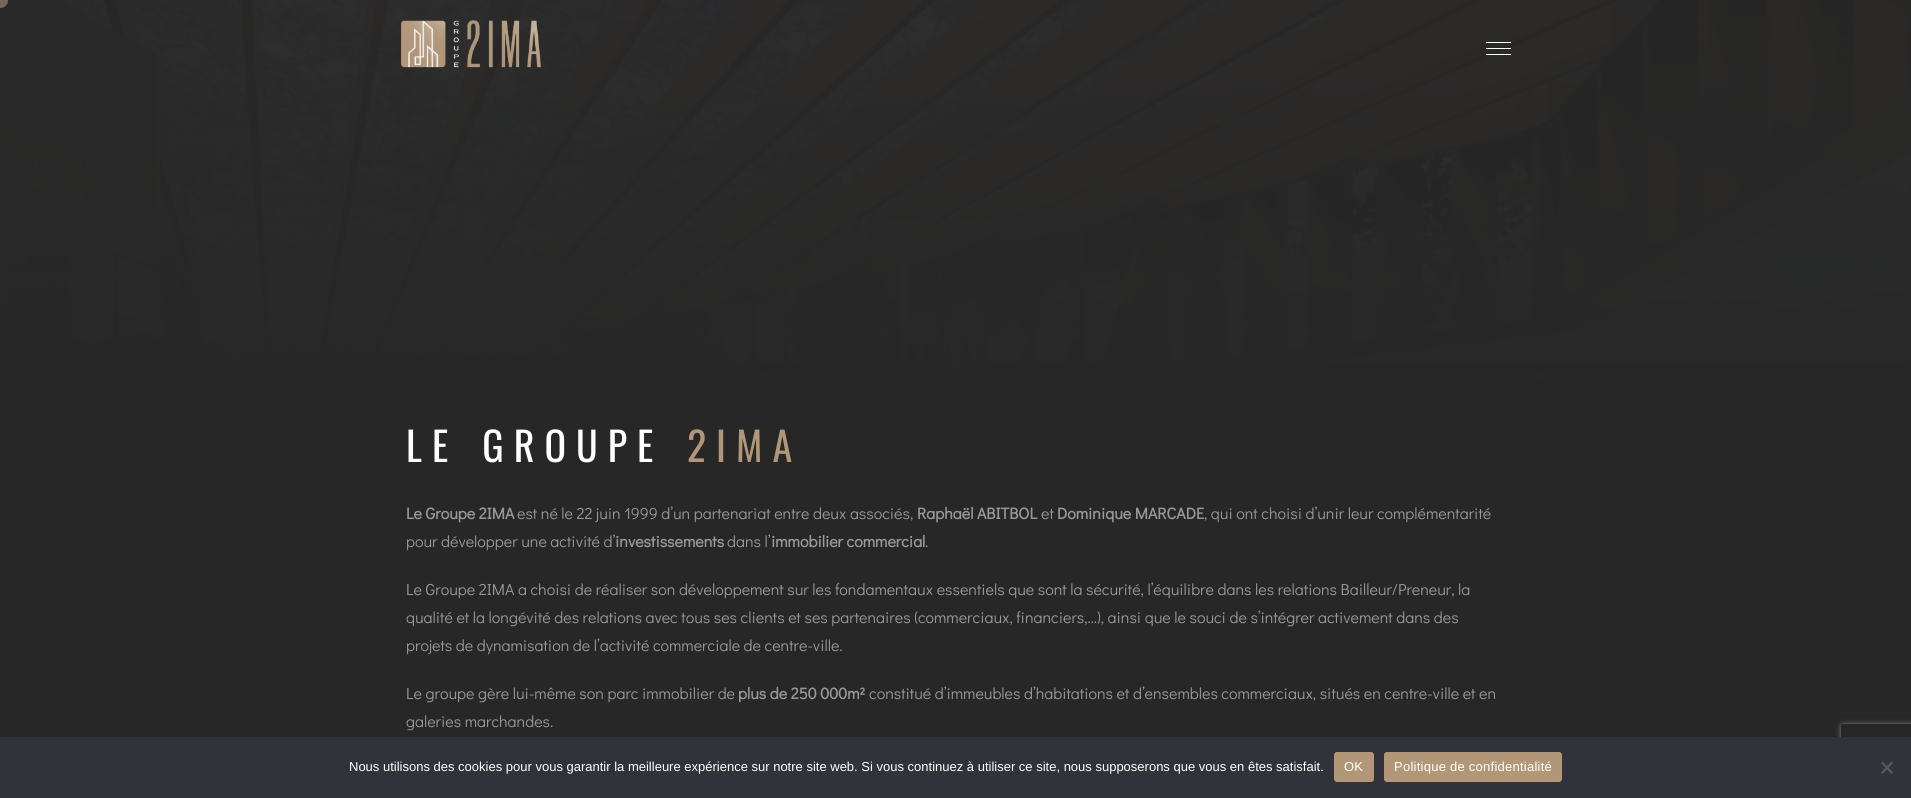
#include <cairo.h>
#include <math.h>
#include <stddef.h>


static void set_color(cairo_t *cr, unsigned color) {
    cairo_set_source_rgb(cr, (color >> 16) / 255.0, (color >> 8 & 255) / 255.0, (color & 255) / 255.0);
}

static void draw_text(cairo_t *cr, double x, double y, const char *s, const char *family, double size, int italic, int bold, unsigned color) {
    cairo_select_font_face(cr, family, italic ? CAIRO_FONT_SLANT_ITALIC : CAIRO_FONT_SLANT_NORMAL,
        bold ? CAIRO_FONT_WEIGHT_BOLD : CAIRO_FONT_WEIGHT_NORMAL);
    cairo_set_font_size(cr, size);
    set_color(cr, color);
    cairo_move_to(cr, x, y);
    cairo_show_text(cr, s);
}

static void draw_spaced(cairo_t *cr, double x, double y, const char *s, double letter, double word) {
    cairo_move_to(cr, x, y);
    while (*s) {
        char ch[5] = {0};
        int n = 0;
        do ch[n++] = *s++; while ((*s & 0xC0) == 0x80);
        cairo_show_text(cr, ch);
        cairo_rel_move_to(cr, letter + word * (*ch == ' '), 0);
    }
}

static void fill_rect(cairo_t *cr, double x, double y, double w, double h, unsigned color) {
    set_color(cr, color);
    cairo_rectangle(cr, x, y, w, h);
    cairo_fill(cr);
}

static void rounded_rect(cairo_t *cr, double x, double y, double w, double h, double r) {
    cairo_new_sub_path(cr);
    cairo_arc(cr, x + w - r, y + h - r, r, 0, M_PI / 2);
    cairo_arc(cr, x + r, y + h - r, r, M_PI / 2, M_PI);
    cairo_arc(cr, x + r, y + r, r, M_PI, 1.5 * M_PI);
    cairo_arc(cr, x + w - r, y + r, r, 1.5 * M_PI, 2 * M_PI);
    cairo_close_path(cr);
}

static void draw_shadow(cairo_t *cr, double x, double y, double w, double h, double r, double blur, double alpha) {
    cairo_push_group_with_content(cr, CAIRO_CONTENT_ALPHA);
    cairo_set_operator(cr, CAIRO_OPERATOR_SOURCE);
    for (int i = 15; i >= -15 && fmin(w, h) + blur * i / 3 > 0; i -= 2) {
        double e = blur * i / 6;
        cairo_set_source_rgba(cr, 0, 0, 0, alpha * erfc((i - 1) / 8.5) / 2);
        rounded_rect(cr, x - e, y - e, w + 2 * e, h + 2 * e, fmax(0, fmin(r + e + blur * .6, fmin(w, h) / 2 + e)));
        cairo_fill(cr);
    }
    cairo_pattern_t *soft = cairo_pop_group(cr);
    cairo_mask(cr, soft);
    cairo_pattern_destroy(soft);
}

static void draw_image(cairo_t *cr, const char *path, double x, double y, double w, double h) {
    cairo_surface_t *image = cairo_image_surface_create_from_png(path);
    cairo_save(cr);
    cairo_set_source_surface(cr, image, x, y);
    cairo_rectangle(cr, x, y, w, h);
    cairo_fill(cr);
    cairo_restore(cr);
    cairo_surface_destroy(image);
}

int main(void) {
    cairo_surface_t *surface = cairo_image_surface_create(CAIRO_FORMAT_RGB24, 1911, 798);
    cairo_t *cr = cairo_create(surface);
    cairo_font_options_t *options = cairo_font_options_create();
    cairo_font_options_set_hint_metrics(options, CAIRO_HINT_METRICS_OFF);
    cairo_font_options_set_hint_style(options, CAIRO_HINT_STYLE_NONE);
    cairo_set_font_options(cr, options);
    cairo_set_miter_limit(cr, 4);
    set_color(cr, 0x272727);
    cairo_paint(cr);
    draw_image(cr, "assets/img2.png", 0, 0, 1911, 399);
    set_color(cr, 0x776653);
    cairo_arc(cr, 0.5, 0.5, 7.5, 0, 2 * M_PI);
    cairo_fill(cr);
    draw_image(cr, "assets/img1.png", 401, 20, 140, 48);
    fill_rect(cr, 1486, 48, 25, 1, 0xFFFFFF);
    fill_rect(cr, 1486, 42, 25, 1, 0xFFFFFF);
    fill_rect(cr, 1486, 54, 25, 1, 0xFFFFFF);
    cairo_select_font_face(cr, "Oswald", CAIRO_FONT_SLANT_NORMAL, CAIRO_FONT_WEIGHT_NORMAL);
    cairo_set_font_size(cr, 40);
    draw_spaced(cr, 406, 462, "LE GROUPE", 10, 5);
    set_color(cr, 0xB19777);
    draw_spaced(cr, 687, 462, "2IMA", 10, 0);
    draw_text(cr, 406, 519, "Le Groupe 2IMA", "Didact Gothic", 16, 0, 1, 0x999999);
    draw_text(cr, 517, 519, "est né le 22 juin 1999 d’un partenariat entre deux associés,", "Didact Gothic", 16, 0, 0, 0x999999);
    draw_text(cr, 917, 519, "Raphaël ABITBOL", "Didact Gothic", 16, 0, 1, 0x999999);
    draw_text(cr, 1041, 519, "et", "Didact Gothic", 16, 0, 0, 0x999999);
    draw_text(cr, 1057, 519, "Dominique MARCADE", "Didact Gothic", 16, 0, 1, 0x999999);
    draw_text(cr, 1204, 519, ", qui ont choisi d’unir leur complémentarité", "Didact Gothic", 16, 0, 0, 0x999999);
    draw_text(cr, 406, 547, "pour développer une activité d’", "Didact Gothic", 16, 0, 0, 0x999999);
    draw_text(cr, 615, 547, "investissements", "Didact Gothic", 16, 0, 1, 0x999999);
    draw_text(cr, 727, 547, "dans l’", "Didact Gothic", 16, 0, 0, 0x999999);
    draw_text(cr, 771, 547, "immobilier commercial", "Didact Gothic", 16, 0, 1, 0x999999);
    draw_text(cr, 925, 547, ".", "Didact Gothic", 16, 0, 0, 0x999999);
    draw_text(cr, 406, 595, "Le Groupe 2IMA a choisi de réaliser son développement sur les fondamentaux essentiels que sont la sécurité, l’équilibre dans les relations Bailleur/Preneur, la", "Didact Gothic", 16, 0, 0, 0x999999);
    draw_text(cr, 406, 623, "qualité et la longévité des relations avec tous ses clients et ses partenaires (commerciaux, financiers,…), ainsi que le souci de s’intégrer activement dans des", "Didact Gothic", 16, 0, 0, 0x999999);
    draw_text(cr, 406, 651, "projets de dynamisation de l’activité commerciale de centre-ville.", "Didact Gothic", 16, 0, 0, 0x999999);
    draw_text(cr, 406, 699, "Le groupe gère lui-même son parc immobilier de", "Didact Gothic", 16, 0, 0, 0x999999);
    draw_text(cr, 738, 699, "plus de 250 000m²", "Didact Gothic", 16, 0, 1, 0x999999);
    draw_text(cr, 869, 699, "constitué d’immeubles d’habitations et d’ensembles commerciaux, situés en centre-ville et en", "Didact Gothic", 16, 0, 0, 0x999999);
    draw_text(cr, 406, 727, "galeries marchandes.", "Didact Gothic", 16, 0, 0, 0x999999);
    cairo_save(cr);
    cairo_set_fill_rule(cr, CAIRO_FILL_RULE_EVEN_ODD);
    cairo_new_path(cr);
    cairo_move_to(cr, 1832, 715);
    cairo_line_to(cr, 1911, 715);
    cairo_line_to(cr, 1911, 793);
    cairo_line_to(cr, 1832, 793);
    cairo_close_path(cr);
    cairo_move_to(cr, 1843, 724);
    cairo_line_to(cr, 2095, 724);
    cairo_curve_to(cr, 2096, 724, 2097, 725, 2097, 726);
    cairo_line_to(cr, 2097, 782);
    cairo_curve_to(cr, 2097, 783, 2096, 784, 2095, 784);
    cairo_line_to(cr, 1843, 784);
    cairo_curve_to(cr, 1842, 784, 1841, 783, 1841, 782);
    cairo_line_to(cr, 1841, 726);
    cairo_curve_to(cr, 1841, 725, 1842, 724, 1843, 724);
    cairo_close_path(cr);
    cairo_clip(cr);
    set_color(cr, 0x808080);
    draw_shadow(cr, 1841, 724, 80, 60, 2, 2.5, 1);
    cairo_restore(cr);
    fill_rect(cr, 0, 737, 1911, 61, 0x32323A);
    draw_text(cr, 349, 771, "Nous utilisons des cookies pour vous garantir la meilleure expérience sur notre site web. Si vous continuez à utiliser ce site, nous supposerons que vous en êtes satisfait.", "Liberation Sans", 13, 0, 0, 0xFFFFFF);
    set_color(cr, 0xB19777);
    rounded_rect(cr, 1334, 752, 40, 30, 3);
    cairo_fill(cr);
    set_color(cr, 0xFFFFFF);
    draw_spaced(cr, 1344, 771, "OK", 0.25, 0);
    set_color(cr, 0xB19777);
    rounded_rect(cr, 1384, 752, 178, 30, 3);
    cairo_fill(cr);
    set_color(cr, 0xFFFFFF);
    draw_spaced(cr, 1394, 771, "Politique de confidentialité", 0.25, 0);
    set_color(cr, 0x59595D);
    cairo_new_path(cr);
    cairo_move_to(cr, 1891.5, 761.5);
    cairo_line_to(cr, 1893, 763);
    cairo_line_to(cr, 1882.5, 774);
    cairo_line_to(cr, 1881, 772.5);
    cairo_close_path(cr);
    cairo_fill(cr);
    cairo_new_path(cr);
    cairo_move_to(cr, 1881, 763);
    cairo_line_to(cr, 1882.5, 761.5);
    cairo_line_to(cr, 1893, 772.5);
    cairo_line_to(cr, 1891.5, 774);
    cairo_close_path(cr);
    cairo_fill(cr);
    cairo_surface_write_to_png(surface, "output.png");
    cairo_font_options_destroy(options);
    cairo_destroy(cr);
    cairo_surface_destroy(surface);
    return 0;
}
